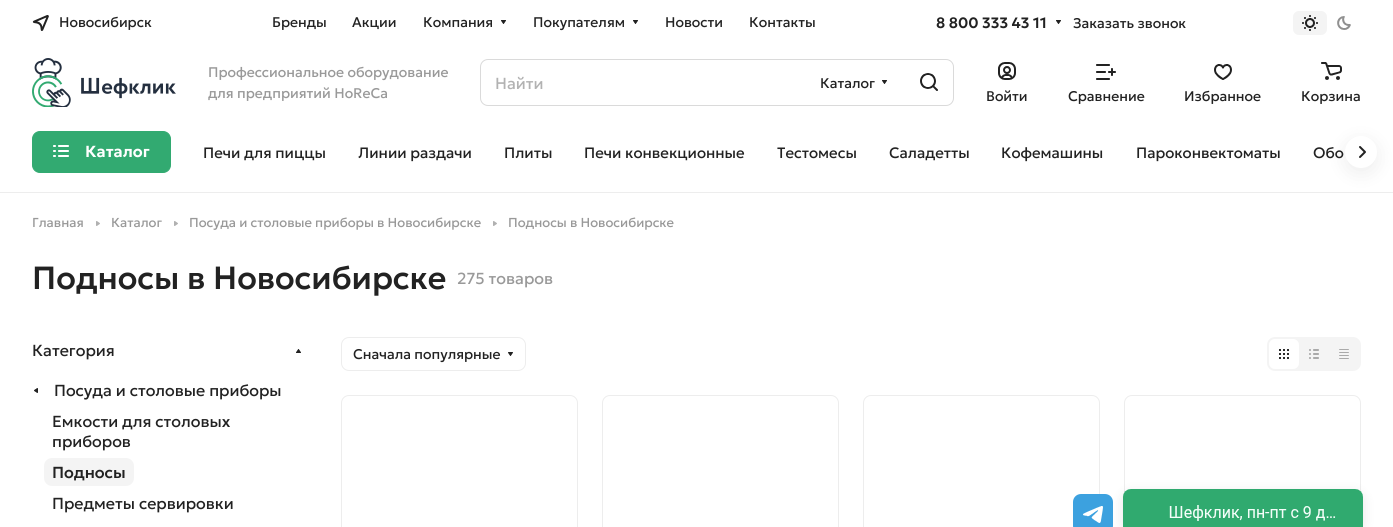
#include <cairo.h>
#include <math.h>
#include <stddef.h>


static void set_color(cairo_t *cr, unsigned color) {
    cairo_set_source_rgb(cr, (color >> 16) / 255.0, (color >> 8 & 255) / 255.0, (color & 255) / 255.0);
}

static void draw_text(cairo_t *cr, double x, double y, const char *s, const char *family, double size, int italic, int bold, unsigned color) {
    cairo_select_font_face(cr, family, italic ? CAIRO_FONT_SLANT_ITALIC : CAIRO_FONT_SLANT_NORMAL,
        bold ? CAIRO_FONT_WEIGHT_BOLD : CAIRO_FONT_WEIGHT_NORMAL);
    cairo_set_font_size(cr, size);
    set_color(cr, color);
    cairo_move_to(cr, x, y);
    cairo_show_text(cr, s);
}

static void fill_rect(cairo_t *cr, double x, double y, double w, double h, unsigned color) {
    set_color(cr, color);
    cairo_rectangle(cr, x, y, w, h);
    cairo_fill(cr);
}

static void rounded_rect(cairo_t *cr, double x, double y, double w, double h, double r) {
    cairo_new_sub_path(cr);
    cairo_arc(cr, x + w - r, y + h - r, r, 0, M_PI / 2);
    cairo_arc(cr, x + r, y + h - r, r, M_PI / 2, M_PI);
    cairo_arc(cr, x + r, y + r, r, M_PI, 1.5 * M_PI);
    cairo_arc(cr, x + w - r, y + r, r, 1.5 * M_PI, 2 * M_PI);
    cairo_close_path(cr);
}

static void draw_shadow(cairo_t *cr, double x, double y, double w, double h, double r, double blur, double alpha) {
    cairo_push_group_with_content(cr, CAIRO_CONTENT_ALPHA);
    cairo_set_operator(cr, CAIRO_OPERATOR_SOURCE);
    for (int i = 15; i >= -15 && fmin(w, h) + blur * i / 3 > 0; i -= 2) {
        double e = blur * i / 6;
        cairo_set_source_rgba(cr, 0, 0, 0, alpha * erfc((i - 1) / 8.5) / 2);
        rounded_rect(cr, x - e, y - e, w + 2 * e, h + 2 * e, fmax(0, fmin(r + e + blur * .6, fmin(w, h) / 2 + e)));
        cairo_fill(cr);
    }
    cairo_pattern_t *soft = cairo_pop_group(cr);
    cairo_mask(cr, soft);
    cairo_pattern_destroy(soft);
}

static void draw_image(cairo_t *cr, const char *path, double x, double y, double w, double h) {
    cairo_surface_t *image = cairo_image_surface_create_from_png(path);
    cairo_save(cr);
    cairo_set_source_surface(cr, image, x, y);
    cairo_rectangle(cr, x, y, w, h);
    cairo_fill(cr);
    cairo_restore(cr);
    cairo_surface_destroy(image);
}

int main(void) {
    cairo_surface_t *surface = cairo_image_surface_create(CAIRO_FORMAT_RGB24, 1393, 527);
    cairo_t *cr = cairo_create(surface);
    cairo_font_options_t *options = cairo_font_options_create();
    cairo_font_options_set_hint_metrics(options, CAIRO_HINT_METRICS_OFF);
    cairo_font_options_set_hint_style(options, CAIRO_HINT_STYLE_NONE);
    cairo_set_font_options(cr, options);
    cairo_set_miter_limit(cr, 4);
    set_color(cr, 0xFFFFFF);
    cairo_paint(cr);
    fill_rect(cr, 0, 192, 1393, 1, 0xEDEDED);
    draw_image(cr, "assets/img1.png", 32, 15, 17, 16);
    draw_text(cr, 59, 27, "Новосибирск", "Geologica", 14, 0, 0, 0x222222);
    draw_text(cr, 272, 27, "Бренды", "Geologica", 14, 0, 0, 0x222222);
    draw_text(cr, 352, 27, "Акции", "Geologica", 14, 0, 0, 0x222222);
    draw_text(cr, 423, 27, "Компания", "Geologica", 14, 0, 0, 0x222222);
    draw_image(cr, "assets/img2.png", 501, 20, 5, 4);
    draw_text(cr, 533, 27, "Покупателям", "Geologica", 14, 0, 0, 0x222222);
    draw_image(cr, "assets/img2.png", 633, 20, 5, 4);
    draw_text(cr, 665, 27, "Новости", "Geologica", 14, 0, 0, 0x222222);
    draw_text(cr, 749, 27, "Контакты", "Geologica", 14, 0, 0, 0x222222);
    draw_text(cr, 936, 28, "8 800 333 43 11", "Geologica SemiBold", 15, 0, 0, 0x222222);
    draw_image(cr, "assets/img2.png", 1056, 20, 5, 4);
    draw_text(cr, 1073, 28, "Заказать звонок", "Geologica", 14, 0, 0, 0x222222);
    set_color(cr, 0xF4F4F4);
    rounded_rect(cr, 1293, 11, 34, 24, 6);
    cairo_fill(cr);
    draw_image(cr, "assets/img3.png", 1302, 15, 16, 16);
    draw_image(cr, "assets/img4.png", 1337, 16, 14, 14);
    draw_image(cr, "assets/img5.png", 32, 58, 144, 49);
    draw_text(cr, 208, 77, "Профессиональное оборудование", "Geologica", 14, 0, 0, 0x999999);
    draw_text(cr, 208, 98, "для предприятий HoReCa", "Geologica", 14, 0, 0, 0x999999);
    rounded_rect(cr, 480.5, 59.5, 473, 46, 7.5);
    set_color(cr, 0xDADADA);
    cairo_set_line_width(cr, 1);
    cairo_stroke(cr);
    draw_text(cr, 495, 89, "Найти", "Geologica", 16, 0, 0, 0xB2B2B2);
    draw_text(cr, 820, 88, "Каталог", "Geologica", 14, 0, 0, 0x222222);
    draw_image(cr, "assets/img2.png", 882, 80, 5, 4);
    draw_image(cr, "assets/img6.png", 920, 73, 18, 18);
    draw_image(cr, "assets/img7.png", 998, 62, 18, 18);
    draw_text(cr, 986, 101, "Войти", "Geologica", 14, 0, 0, 0x222222);
    draw_image(cr, "assets/img8.png", 1096, 64, 20, 16);
    draw_text(cr, 1068, 101, "Сравнение", "Geologica", 14, 0, 0, 0x222222);
    draw_image(cr, "assets/img9.png", 1214, 64, 18, 16);
    draw_text(cr, 1184, 101, "Избранное", "Geologica", 14, 0, 0, 0x222222);
    draw_image(cr, "assets/img10.png", 1321, 62, 21, 18);
    draw_text(cr, 1301, 101, "Корзина", "Geologica", 14, 0, 0, 0x222222);
    set_color(cr, 0x32AA71);
    rounded_rect(cr, 32.5, 131.5, 138, 41, 7.5);
    cairo_fill_preserve(cr);
    cairo_stroke(cr);
    draw_image(cr, "assets/img11.png", 53, 145, 16, 12);
    draw_text(cr, 85, 157, "Каталог", "Geologica SemiBold", 16, 0, 0, 0xFFFFFF);
    draw_text(cr, 203, 158, "Печи для пиццы", "Geologica", 15, 0, 0, 0x222222);
    draw_text(cr, 358, 158, "Линии раздачи", "Geologica", 15, 0, 0, 0x222222);
    draw_text(cr, 504, 158, "Плиты", "Geologica", 15, 0, 0, 0x222222);
    draw_text(cr, 584, 158, "Печи конвекционные", "Geologica", 15, 0, 0, 0x222222);
    draw_text(cr, 777, 158, "Тестомесы", "Geologica", 15, 0, 0, 0x222222);
    draw_text(cr, 889, 158, "Саладетты", "Geologica", 15, 0, 0, 0x222222);
    draw_text(cr, 1001, 158, "Кофемашины", "Geologica", 15, 0, 0, 0x222222);
    draw_text(cr, 1136, 158, "Пароконвектоматы", "Geologica", 15, 0, 0, 0x222222);
    draw_text(cr, 1313, 158, "Обо", "Geologica", 15, 0, 0, 0x222222);
    set_color(cr, 0x000000);
    draw_shadow(cr, 1345, 141, 32, 32, 16, 10, 0.07);
    set_color(cr, 0xFFFFFF);
    cairo_arc(cr, 1361, 152, 16, 0, 2 * M_PI);
    cairo_fill(cr);
    cairo_new_path(cr);
    cairo_move_to(cr, 1360, 147);
    cairo_line_to(cr, 1365, 152);
    cairo_line_to(cr, 1360, 157);
    set_color(cr, 0x222222);
    cairo_set_line_width(cr, 2);
    cairo_set_line_cap(cr, CAIRO_LINE_CAP_ROUND);
    cairo_set_line_join(cr, CAIRO_LINE_JOIN_ROUND);
    cairo_stroke(cr);
    draw_text(cr, 32, 227, "Главная", "Geologica", 13, 0, 0, 0x999999);
    draw_image(cr, "assets/img12.png", 96, 221, 4, 5);
    draw_text(cr, 111, 227, "Каталог", "Geologica", 13, 0, 0, 0x999999);
    draw_image(cr, "assets/img12.png", 174, 221, 4, 5);
    draw_text(cr, 189, 227, "Посуда и столовые приборы в Новосибирске", "Geologica", 13, 0, 0, 0x999999);
    draw_image(cr, "assets/img12.png", 493, 221, 4, 5);
    draw_text(cr, 508, 227, "Подносы в Новосибирске", "Geologica", 13, 0, 0, 0x999999);
    draw_text(cr, 32, 289, "Подносы в Новосибирске", "Geologica Medium", 32, 0, 0, 0x222222);
    draw_text(cr, 457, 284, "275 товаров", "Geologica", 16, 0, 0, 0x999999);
    draw_text(cr, 32, 356, "Категория", "Geologica", 16, 0, 0, 0x222222);
    draw_image(cr, "assets/img13.png", 296, 349, 5, 4);
    draw_image(cr, "assets/img14.png", 34, 388, 4, 5);
    draw_text(cr, 54, 396, "Посуда и столовые приборы", "Geologica", 16, 0, 0, 0x222222);
    draw_text(cr, 52, 427, "Емкости для столовых", "Geologica", 16, 0, 0, 0x222222);
    draw_text(cr, 52, 447, "приборов", "Geologica", 16, 0, 0, 0x222222);
    set_color(cr, 0xF4F4F4);
    rounded_rect(cr, 44, 458, 90, 28, 8);
    cairo_fill(cr);
    draw_text(cr, 52, 478, "Подносы", "Geologica Medium", 16, 0, 0, 0x222222);
    draw_text(cr, 52, 509, "Предметы сервировки", "Geologica", 16, 0, 0, 0x222222);
    rounded_rect(cr, 341.5, 337.5, 184, 33, 7.5);
    set_color(cr, 0xEDEDED);
    cairo_set_line_width(cr, 1);
    cairo_set_line_cap(cr, CAIRO_LINE_CAP_BUTT);
    cairo_set_line_join(cr, CAIRO_LINE_JOIN_MITER);
    cairo_stroke(cr);
    draw_text(cr, 353, 359, "Сначала популярные", "Geologica", 14, 0, 0, 0x222222);
    draw_image(cr, "assets/img15.png", 508, 352, 5, 4);
    set_color(cr, 0xF4F4F4);
    rounded_rect(cr, 1268, 338, 92, 32, 7);
    cairo_fill_preserve(cr);
    cairo_set_line_width(cr, 2);
    cairo_stroke(cr);
    set_color(cr, 0xFFFFFF);
    rounded_rect(cr, 1269, 339, 30, 30, 6);
    cairo_fill(cr);
    draw_image(cr, "assets/img16.png", 1279, 349, 10, 10);
    draw_image(cr, "assets/img17.png", 1309, 349, 10, 10);
    draw_image(cr, "assets/img18.png", 1339, 349, 10, 10);
    rounded_rect(cr, 341.5, 395.5, 236, 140, 7.5);
    set_color(cr, 0xEDEDED);
    cairo_set_line_width(cr, 1);
    cairo_stroke(cr);
    rounded_rect(cr, 602.5, 395.5, 236, 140, 7.5);
    cairo_stroke(cr);
    rounded_rect(cr, 863.5, 395.5, 236, 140, 7.5);
    cairo_stroke(cr);
    rounded_rect(cr, 1124.5, 395.5, 236, 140, 7.5);
    cairo_stroke(cr);
    set_color(cr, 0x3CA1DF);
    rounded_rect(cr, 1073, 494, 40, 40, 8);
    cairo_fill(cr);
    draw_image(cr, "assets/img19.png", 1083, 506, 20, 17);
    set_color(cr, 0x000000);
    draw_shadow(cr, 1123, 493, 240, 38, 8, 6, 0.1);
    draw_image(cr, "assets/img20.png", 1123, 489, 240, 38);
    cairo_surface_write_to_png(surface, "output.png");
    cairo_font_options_destroy(options);
    cairo_destroy(cr);
    cairo_surface_destroy(surface);
    return 0;
}
